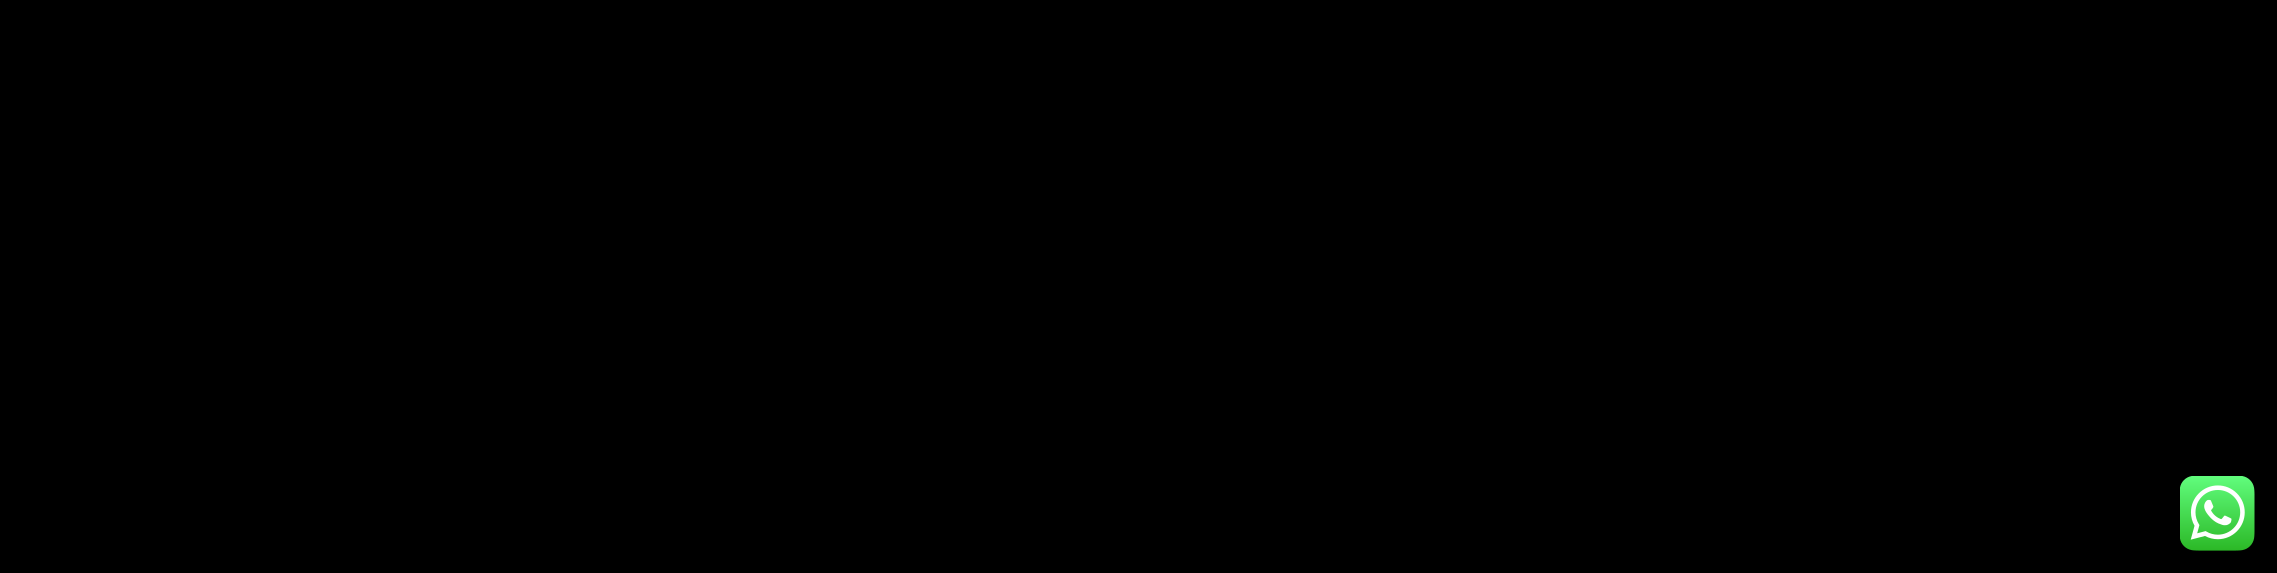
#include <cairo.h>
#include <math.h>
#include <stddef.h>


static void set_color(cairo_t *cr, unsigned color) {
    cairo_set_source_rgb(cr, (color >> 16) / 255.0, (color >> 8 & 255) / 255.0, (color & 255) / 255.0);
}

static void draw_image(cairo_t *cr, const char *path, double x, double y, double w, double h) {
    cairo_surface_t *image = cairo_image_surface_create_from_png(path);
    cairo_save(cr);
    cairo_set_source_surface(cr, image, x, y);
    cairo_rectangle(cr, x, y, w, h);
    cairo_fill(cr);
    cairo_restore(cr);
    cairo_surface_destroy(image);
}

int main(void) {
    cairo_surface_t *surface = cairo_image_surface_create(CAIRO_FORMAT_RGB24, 2277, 573);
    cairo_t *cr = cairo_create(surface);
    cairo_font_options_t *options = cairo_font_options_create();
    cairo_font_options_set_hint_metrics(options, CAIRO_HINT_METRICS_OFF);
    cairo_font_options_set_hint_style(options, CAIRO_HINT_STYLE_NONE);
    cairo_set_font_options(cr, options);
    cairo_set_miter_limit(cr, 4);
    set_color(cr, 0x000000);
    cairo_paint(cr);
    draw_image(cr, "assets/img1.png", 2180, 476, 75, 75);
    cairo_surface_write_to_png(surface, "output.png");
    cairo_font_options_destroy(options);
    cairo_destroy(cr);
    cairo_surface_destroy(surface);
    return 0;
}
